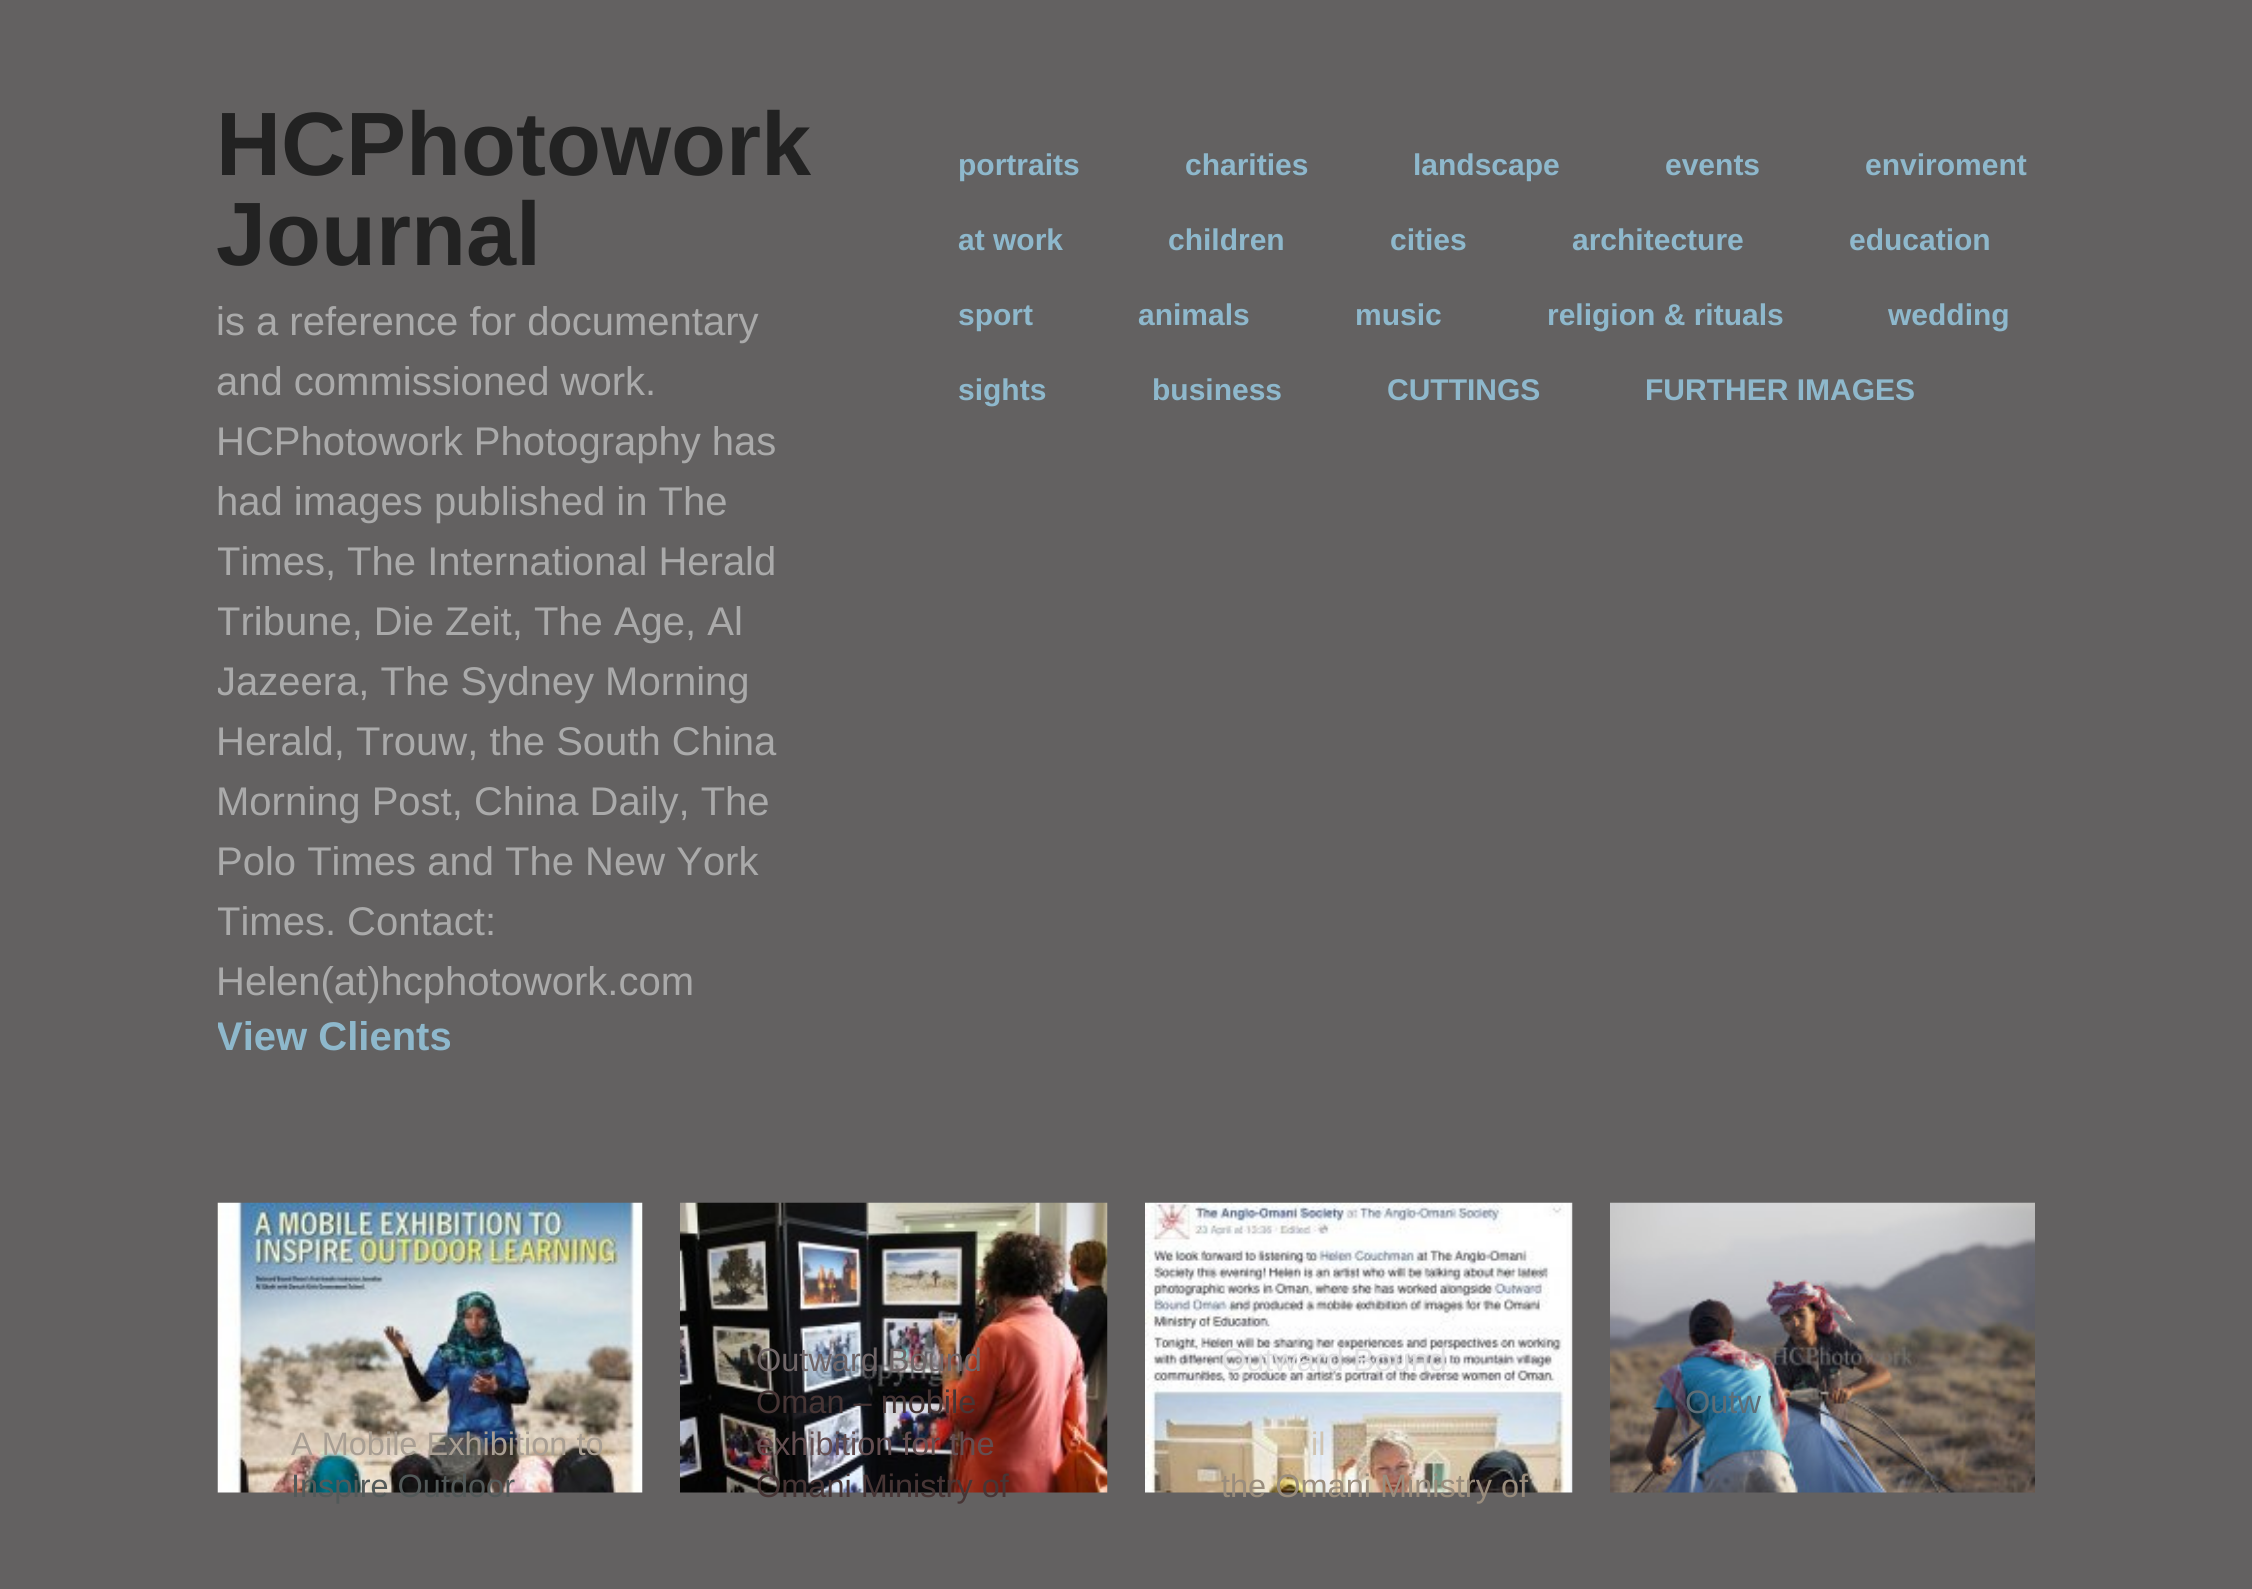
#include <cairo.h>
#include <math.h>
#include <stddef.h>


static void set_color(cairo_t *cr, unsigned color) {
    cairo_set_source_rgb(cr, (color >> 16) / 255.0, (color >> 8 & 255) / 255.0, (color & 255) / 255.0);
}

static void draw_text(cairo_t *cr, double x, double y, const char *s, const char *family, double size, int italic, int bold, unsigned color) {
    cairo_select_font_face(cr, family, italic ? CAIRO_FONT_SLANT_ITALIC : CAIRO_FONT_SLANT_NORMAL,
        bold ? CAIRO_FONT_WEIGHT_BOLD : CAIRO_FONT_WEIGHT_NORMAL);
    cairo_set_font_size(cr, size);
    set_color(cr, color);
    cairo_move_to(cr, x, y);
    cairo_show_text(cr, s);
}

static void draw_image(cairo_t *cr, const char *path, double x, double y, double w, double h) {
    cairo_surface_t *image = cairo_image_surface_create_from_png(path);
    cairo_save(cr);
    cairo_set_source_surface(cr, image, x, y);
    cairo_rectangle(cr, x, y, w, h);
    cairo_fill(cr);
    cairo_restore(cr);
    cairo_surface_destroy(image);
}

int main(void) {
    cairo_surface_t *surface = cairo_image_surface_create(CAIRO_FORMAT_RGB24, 2252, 1589);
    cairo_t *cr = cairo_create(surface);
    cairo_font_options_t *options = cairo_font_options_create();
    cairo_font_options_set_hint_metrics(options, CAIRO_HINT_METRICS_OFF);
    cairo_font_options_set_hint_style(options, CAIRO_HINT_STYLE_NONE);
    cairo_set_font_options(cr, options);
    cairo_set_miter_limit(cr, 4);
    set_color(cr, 0x636161);
    cairo_paint(cr);
    draw_text(cr, 216, 175, "HCPhotowork", "Liberation Sans", 90, 0, 1, 0x222222);
    draw_text(cr, 216, 265, "Journal", "Liberation Sans", 90, 0, 1, 0x222222);
    draw_text(cr, 216, 335, "is a reference for documentary", "Liberation Sans", 40, 0, 0, 0xAAAAAA);
    draw_text(cr, 216, 395, "and commissioned work.", "Liberation Sans", 40, 0, 0, 0xAAAAAA);
    draw_text(cr, 216, 455, "HCPhotowork Photography has", "Liberation Sans", 40, 0, 0, 0xAAAAAA);
    draw_text(cr, 216, 515, "had images published in The", "Liberation Sans", 40, 0, 0, 0xAAAAAA);
    cairo_save(cr);
    cairo_rectangle(cr, 218, 100, 635, 1003);
    cairo_clip(cr);
    draw_text(cr, 216, 575, "Times, The International Herald", "Liberation Sans", 40, 0, 0, 0xAAAAAA);
    draw_text(cr, 216, 635, "Tribune, Die Zeit, The Age, Al", "Liberation Sans", 40, 0, 0, 0xAAAAAA);
    draw_text(cr, 216, 695, "Jazeera, The Sydney Morning", "Liberation Sans", 40, 0, 0, 0xAAAAAA);
    cairo_restore(cr);
    draw_text(cr, 216, 755, "Herald, Trouw, the South China", "Liberation Sans", 40, 0, 0, 0xAAAAAA);
    draw_text(cr, 216, 815, "Morning Post, China Daily, The", "Liberation Sans", 40, 0, 0, 0xAAAAAA);
    draw_text(cr, 216, 875, "Polo Times and The New York", "Liberation Sans", 40, 0, 0, 0xAAAAAA);
    cairo_save(cr);
    cairo_rectangle(cr, 218, 100, 635, 1003);
    cairo_clip(cr);
    draw_text(cr, 216, 935, "Times. Contact:", "Liberation Sans", 40, 0, 0, 0xAAAAAA);
    cairo_restore(cr);
    draw_text(cr, 216, 995, "Helen(at)hcphotowork.com", "Liberation Sans", 40, 0, 0, 0xAAAAAA);
    cairo_save(cr);
    cairo_rectangle(cr, 218, 100, 635, 1003);
    cairo_clip(cr);
    draw_text(cr, 216, 1050, "View Clients", "Liberation Sans", 40, 0, 1, 0x8EB8CC);
    cairo_restore(cr);
    draw_text(cr, 958, 175, "portraits", "Liberation Sans", 30, 0, 1, 0x8EB8CC);
    draw_text(cr, 1185, 175, "charities", "Liberation Sans", 30, 0, 1, 0x8EB8CC);
    draw_text(cr, 1413, 175, "landscape", "Liberation Sans", 30, 0, 1, 0x8EB8CC);
    draw_text(cr, 1665, 175, "events", "Liberation Sans", 30, 0, 1, 0x8EB8CC);
    draw_text(cr, 1865, 175, "enviroment", "Liberation Sans", 30, 0, 1, 0x8EB8CC);
    draw_text(cr, 958, 250, "at work", "Liberation Sans", 30, 0, 1, 0x8EB8CC);
    draw_text(cr, 1168, 250, "children", "Liberation Sans", 30, 0, 1, 0x8EB8CC);
    draw_text(cr, 1390, 250, "cities", "Liberation Sans", 30, 0, 1, 0x8EB8CC);
    draw_text(cr, 1572, 250, "architecture", "Liberation Sans", 30, 0, 1, 0x8EB8CC);
    draw_text(cr, 1849, 250, "education", "Liberation Sans", 30, 0, 1, 0x8EB8CC);
    draw_text(cr, 958, 325, "sport", "Liberation Sans", 30, 0, 1, 0x8EB8CC);
    draw_text(cr, 1138, 325, "animals", "Liberation Sans", 30, 0, 1, 0x8EB8CC);
    draw_text(cr, 1355, 325, "music", "Liberation Sans", 30, 0, 1, 0x8EB8CC);
    draw_text(cr, 1547, 325, "religion & rituals", "Liberation Sans", 30, 0, 1, 0x8EB8CC);
    draw_text(cr, 1888, 325, "wedding", "Liberation Sans", 30, 0, 1, 0x8EB8CC);
    draw_text(cr, 958, 400, "sights", "Liberation Sans", 30, 0, 1, 0x8EB8CC);
    draw_text(cr, 1152, 400, "business", "Liberation Sans", 30, 0, 1, 0x8EB8CC);
    draw_text(cr, 1387, 400, "CUTTINGS", "Liberation Sans", 30, 0, 1, 0x8EB8CC);
    draw_text(cr, 1645, 400, "FURTHER IMAGES", "Liberation Sans", 30, 0, 1, 0x8EB8CC);
    draw_image(cr, "assets/img1.png", 680, 1202, 428, 291);
    draw_text(cr, 756, 1371, "Outward Bound", "Liberation Sans", 32.5, 0, 0, 0x706668);
    draw_text(cr, 756, 1413, "Oman – mobile", "Liberation Sans", 32.5, 0, 0, 0x473535);
    draw_text(cr, 756, 1455, "exhibition for the", "Liberation Sans", 32.5, 0, 0, 0x644E51);
    draw_text(cr, 756, 1497, "Omani Ministry of", "Liberation Sans", 32.5, 0, 0, 0x473535);
    draw_image(cr, "assets/img2.png", 1145, 1202, 428, 291);
    draw_text(cr, 1221, 1371, "Outward Bound", "Liberation Sans", 32.5, 0, 0, 0xDFDFE1);
    draw_text(cr, 1311, 1455, "il", "Liberation Sans", 32.5, 0, 0, 0xD0C4B1);
    draw_text(cr, 1221, 1497, "the Omani Ministry of", "Liberation Sans", 32.5, 0, 0, 0x9A8D7D);
    draw_image(cr, "assets/img3.png", 1610, 1202, 425, 291);
    draw_text(cr, 1685, 1413, "Outw", "Liberation Sans", 32.5, 0, 0, 0x5E6D76);
    draw_image(cr, "assets/img4.png", 217, 1202, 426, 291);
    draw_text(cr, 291, 1455, "A Mobile Exhibition to", "Liberation Sans", 32.5, 0, 0, 0xA89E93);
    draw_text(cr, 291, 1497, "Inspire Outdoor", "Liberation Sans", 32.5, 0, 0, 0x525959);
    cairo_surface_write_to_png(surface, "output.png");
    cairo_font_options_destroy(options);
    cairo_destroy(cr);
    cairo_surface_destroy(surface);
    return 0;
}
